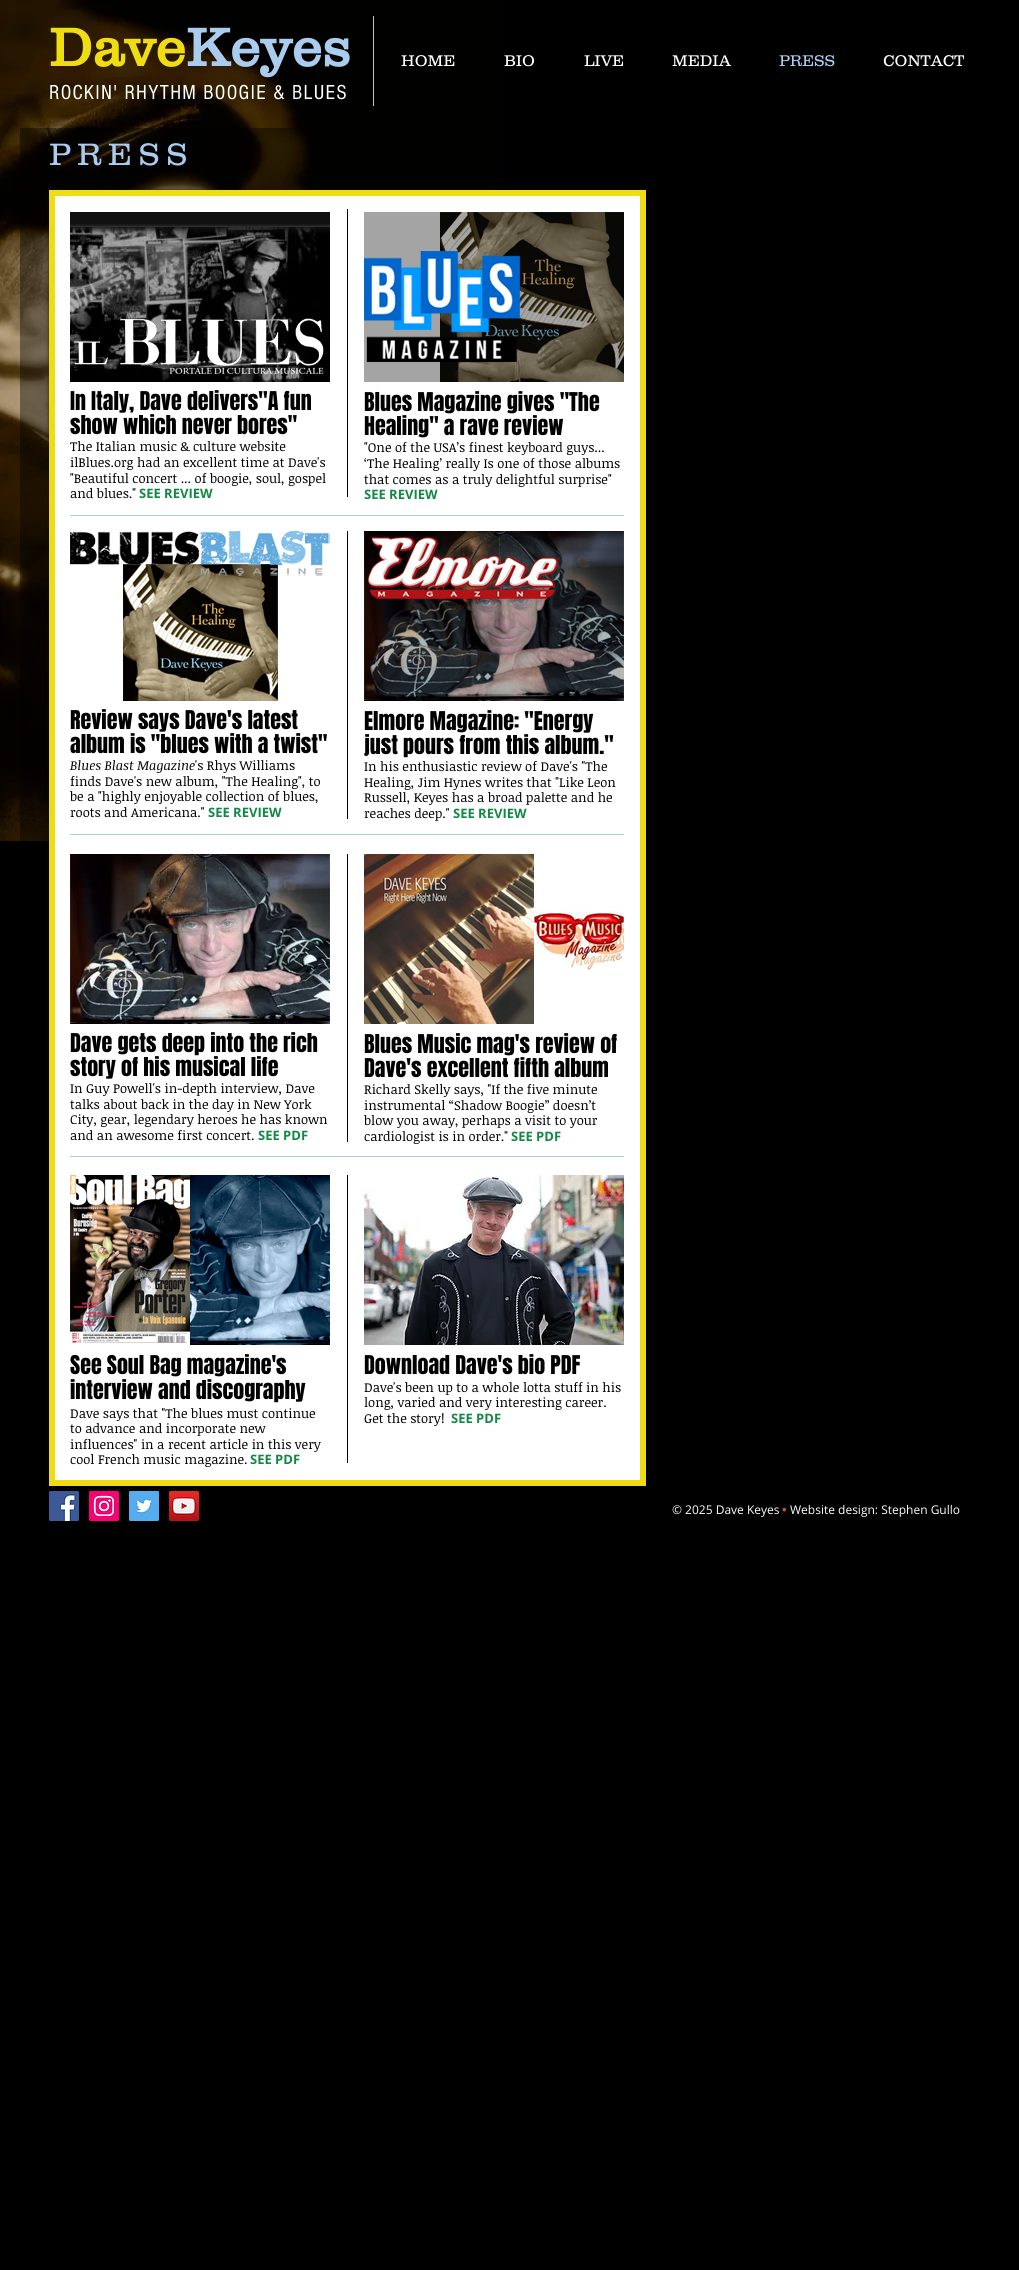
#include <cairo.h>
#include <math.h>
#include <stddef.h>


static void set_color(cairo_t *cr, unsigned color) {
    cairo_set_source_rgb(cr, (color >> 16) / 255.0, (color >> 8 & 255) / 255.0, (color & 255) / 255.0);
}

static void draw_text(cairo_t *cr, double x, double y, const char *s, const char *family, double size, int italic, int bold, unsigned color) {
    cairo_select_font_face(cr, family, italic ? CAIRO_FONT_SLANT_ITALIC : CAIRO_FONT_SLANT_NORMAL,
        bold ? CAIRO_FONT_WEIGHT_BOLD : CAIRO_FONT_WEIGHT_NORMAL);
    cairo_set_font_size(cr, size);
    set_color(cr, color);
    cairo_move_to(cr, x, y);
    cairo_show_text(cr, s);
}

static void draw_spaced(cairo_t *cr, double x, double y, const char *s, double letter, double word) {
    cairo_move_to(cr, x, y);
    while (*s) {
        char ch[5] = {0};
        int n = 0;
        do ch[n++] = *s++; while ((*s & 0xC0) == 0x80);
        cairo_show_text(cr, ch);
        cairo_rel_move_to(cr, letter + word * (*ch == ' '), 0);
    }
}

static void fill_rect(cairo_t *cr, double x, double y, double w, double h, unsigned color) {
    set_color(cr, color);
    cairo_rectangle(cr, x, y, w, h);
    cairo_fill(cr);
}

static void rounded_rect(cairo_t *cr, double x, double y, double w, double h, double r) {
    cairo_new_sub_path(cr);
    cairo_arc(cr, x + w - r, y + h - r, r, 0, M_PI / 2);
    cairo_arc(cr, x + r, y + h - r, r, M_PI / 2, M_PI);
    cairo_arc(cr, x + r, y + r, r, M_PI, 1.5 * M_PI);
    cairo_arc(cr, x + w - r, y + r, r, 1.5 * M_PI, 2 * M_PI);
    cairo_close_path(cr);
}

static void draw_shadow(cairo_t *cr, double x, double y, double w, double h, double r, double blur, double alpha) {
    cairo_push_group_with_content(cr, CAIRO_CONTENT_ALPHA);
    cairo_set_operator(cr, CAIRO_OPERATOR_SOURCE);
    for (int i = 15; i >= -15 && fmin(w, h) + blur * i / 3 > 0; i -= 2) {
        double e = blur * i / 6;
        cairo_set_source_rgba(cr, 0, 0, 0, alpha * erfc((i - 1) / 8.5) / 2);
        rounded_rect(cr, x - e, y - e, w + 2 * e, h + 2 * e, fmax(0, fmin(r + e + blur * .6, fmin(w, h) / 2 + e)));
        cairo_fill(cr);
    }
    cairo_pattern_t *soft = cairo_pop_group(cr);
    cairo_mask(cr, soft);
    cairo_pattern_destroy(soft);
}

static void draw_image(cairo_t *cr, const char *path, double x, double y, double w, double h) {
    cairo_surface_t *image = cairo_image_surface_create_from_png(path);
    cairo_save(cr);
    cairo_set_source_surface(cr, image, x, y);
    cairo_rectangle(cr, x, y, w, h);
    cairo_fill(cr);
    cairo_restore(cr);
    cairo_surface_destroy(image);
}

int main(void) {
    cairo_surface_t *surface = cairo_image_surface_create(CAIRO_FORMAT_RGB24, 1019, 2270);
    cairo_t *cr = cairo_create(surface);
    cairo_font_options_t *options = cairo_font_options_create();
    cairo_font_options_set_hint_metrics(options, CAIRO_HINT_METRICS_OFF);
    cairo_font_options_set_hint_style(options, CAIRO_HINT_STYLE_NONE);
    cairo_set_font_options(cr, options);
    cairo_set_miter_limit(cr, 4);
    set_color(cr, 0x000000);
    cairo_paint(cr);
    draw_image(cr, "assets/img1.png", 0, 0, 505, 841);
    cairo_select_font_face(cr, "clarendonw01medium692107", CAIRO_FONT_SLANT_NORMAL, CAIRO_FONT_WEIGHT_BOLD);
    cairo_set_font_size(cr, 55);
    set_color(cr, 0xEEDD11);
    draw_spaced(cr, 49, 66, "Dave", 0.5, 0);
    set_color(cr, 0xAACCEE);
    draw_spaced(cr, 186, 66, "Keyes", 0.5, 0);
    fill_rect(cr, 373, 16, 1, 90, 0xC5C5C4);
    draw_text(cr, 401, 66, "HOME", "clarendonw01medium692107 Light", 16, 0, 0, 0xFFFFFF);
    draw_text(cr, 504, 66, "BIO", "clarendonw01medium692107 Light", 16, 0, 0, 0xFFFFFF);
    draw_text(cr, 584, 66, "LIVE", "clarendonw01medium692107 Light", 16, 0, 0, 0xFFFFFF);
    draw_text(cr, 672, 66, "MEDIA", "clarendonw01medium692107 Light", 16, 0, 0, 0xFFFFFF);
    draw_text(cr, 779, 66, "PRESS", "clarendonw01medium692107 Light", 16, 0, 0, 0xAACCEE);
    draw_text(cr, 883, 66, "CONTACT", "clarendonw01medium692107 Light", 16, 0, 0, 0xFFFFFF);
    cairo_select_font_face(cr, "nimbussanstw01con", CAIRO_FONT_SLANT_NORMAL, CAIRO_FONT_WEIGHT_NORMAL);
    cairo_set_font_size(cr, 21);
    draw_spaced(cr, 49, 99, "ROCKIN' RHYTHM BOOGIE & BLUES", 1.25, 0);
    cairo_set_source_rgba(cr, 0, 0, 0, 0.4);
    cairo_rectangle(cr, 20, 128, 485, 713);
    cairo_fill(cr);
    cairo_select_font_face(cr, "clarendonw01medium692107 Light", CAIRO_FONT_SLANT_NORMAL, CAIRO_FONT_WEIGHT_NORMAL);
    cairo_set_font_size(cr, 32);
    set_color(cr, 0xAACCEE);
    draw_spaced(cr, 49, 165, "PRESS", 6.5, 0);
    set_color(cr, 0x000000);
    draw_shadow(cr, 49, 191, 597, 1296, 0, 2, 0.6);
    set_color(cr, 0xFFFFFF);
    cairo_rectangle(cr, 52, 193, 591, 1290);
    cairo_fill_preserve(cr);
    set_color(cr, 0xEEDD11);
    cairo_set_line_width(cr, 6);
    cairo_stroke(cr);
    draw_image(cr, "assets/img2.png", 70, 212, 260, 170);
    fill_rect(cr, 347, 209, 1, 288, 0x000000);
    draw_image(cr, "assets/img3.png", 364, 212, 260, 170);
    draw_text(cr, 70, 410, "In Italy, Dave delivers\"A fun", "Anton", 22, 0, 0, 0x000000);
    draw_text(cr, 70, 434, "show which never bores\"", "Anton", 22, 0, 0, 0x000000);
    draw_text(cr, 364, 411, "Blues Magazine gives \"The", "Anton", 22, 0, 0, 0x000000);
    draw_text(cr, 364, 435, "Healing\" a rave review", "Anton", 22, 0, 0, 0x000000);
    draw_text(cr, 70, 451, "The Italian music & culture website", "Noticia Text", 13, 0, 0, 0x000000);
    draw_text(cr, 70, 467, "ilBlues.org had an excellent time at Dave's", "Noticia Text", 13, 0, 0, 0x000000);
    draw_text(cr, 70, 483, "\"Beautiful concert ... of boogie, soul, gospel", "Noticia Text", 13, 0, 0, 0x000000);
    draw_text(cr, 70, 498, "and blues.\"", "Noticia Text", 13, 0, 0, 0x000000);
    draw_text(cr, 139, 498, "SEE REVIEW", "Open Sans", 13, 0, 1, 0x118844);
    draw_text(cr, 364, 452, "\"One of the USA’s finest keyboard guys...", "Noticia Text", 13, 0, 0, 0x000000);
    draw_text(cr, 364, 468, "‘The Healing’ really Is one of those albums", "Noticia Text", 13, 0, 0, 0x000000);
    draw_text(cr, 364, 484, "that comes as a truly delightful surprise\"", "Noticia Text", 13, 0, 0, 0x000000);
    draw_text(cr, 364, 499, "SEE REVIEW", "Open Sans", 13, 0, 1, 0x118844);
    fill_rect(cr, 70, 515, 554, 1, 0xAACCEE);
    draw_image(cr, "assets/img4.png", 70, 531, 260, 170);
    fill_rect(cr, 347, 531, 1, 288, 0x000000);
    draw_image(cr, "assets/img5.png", 364, 531, 260, 170);
    draw_text(cr, 70, 729, "Review says Dave's latest", "Anton", 22, 0, 0, 0x000000);
    draw_text(cr, 70, 753, "album is \"blues with a twist\"", "Anton", 22, 0, 0, 0x000000);
    draw_text(cr, 364, 730, "Elmore Magazine: \"Energy", "Anton", 22, 0, 0, 0x000000);
    draw_text(cr, 364, 754, "just pours from this album.\"", "Anton", 22, 0, 0, 0x000000);
    draw_text(cr, 70, 770, "Blues Blast Magazine", "Noticia Text", 13, 1, 0, 0x000000);
    draw_text(cr, 195, 770, "'s Rhys Williams", "Noticia Text", 13, 0, 0, 0x000000);
    draw_text(cr, 70, 786, "finds Dave's new album, \"The Healing\", to", "Noticia Text", 13, 0, 0, 0x000000);
    draw_text(cr, 70, 801, "be a \"highly enjoyable collection of blues,", "Noticia Text", 13, 0, 0, 0x000000);
    draw_text(cr, 70, 817, "roots and Americana.\"", "Noticia Text", 13, 0, 0, 0x000000);
    draw_text(cr, 208, 817, "SEE REVIEW", "Open Sans", 13, 0, 1, 0x118844);
    draw_text(cr, 364, 771, "In his enthusiastic review of Dave's \"The", "Noticia Text", 13, 0, 0, 0x000000);
    draw_text(cr, 364, 787, "Healing, Jim Hynes writes that \"Like Leon", "Noticia Text", 13, 0, 0, 0x000000);
    draw_text(cr, 364, 802, "Russell, Keyes has a broad palette and he", "Noticia Text", 13, 0, 0, 0x000000);
    draw_text(cr, 364, 818, "reaches deep.\"", "Noticia Text", 13, 0, 0, 0x000000);
    draw_text(cr, 453, 818, "SEE REVIEW", "Open Sans", 13, 0, 1, 0x118844);
    fill_rect(cr, 70, 834, 554, 1, 0xAACCEE);
    draw_image(cr, "assets/img6.png", 70, 854, 260, 170);
    fill_rect(cr, 347, 854, 1, 288, 0x000000);
    draw_image(cr, "assets/img7.png", 364, 854, 260, 170);
    draw_text(cr, 70, 1052, "Dave gets deep into the rich", "Anton", 22, 0, 0, 0x000000);
    draw_text(cr, 70, 1076, "story of his musical life", "Anton", 22, 0, 0, 0x000000);
    draw_text(cr, 364, 1053, "Blues Music mag's review of", "Anton", 22, 0, 0, 0x000000);
    draw_text(cr, 364, 1077, "Dave's excellent fifth album", "Anton", 22, 0, 0, 0x000000);
    draw_text(cr, 70, 1093, "In Guy Powell's in-depth interview, Dave", "Noticia Text", 13, 0, 0, 0x000000);
    draw_text(cr, 70, 1109, "talks about back in the day in New York", "Noticia Text", 13, 0, 0, 0x000000);
    draw_text(cr, 70, 1124, "City, gear, legendary heroes he has known", "Noticia Text", 13, 0, 0, 0x000000);
    draw_text(cr, 70, 1140, "and an awesome first concert.", "Noticia Text", 13, 0, 0, 0x000000);
    draw_text(cr, 258, 1140, "SEE PDF", "Open Sans", 13, 0, 1, 0x118844);
    draw_text(cr, 364, 1094, "Richard Skelly says, \"If the five minute", "Noticia Text", 13, 0, 0, 0x000000);
    draw_text(cr, 364, 1110, "instrumental “Shadow Boogie” doesn’t", "Noticia Text", 13, 0, 0, 0x000000);
    draw_text(cr, 364, 1125, "blow you away, perhaps a visit to your", "Noticia Text", 13, 0, 0, 0x000000);
    draw_text(cr, 364, 1141, "cardiologist is in order.\"", "Noticia Text", 13, 0, 0, 0x000000);
    draw_text(cr, 511, 1141, "SEE PDF", "Open Sans", 13, 0, 1, 0x118844);
    fill_rect(cr, 70, 1156, 554, 1, 0xAACCEE);
    draw_image(cr, "assets/img8.png", 70, 1175, 260, 170);
    fill_rect(cr, 347, 1175, 1, 288, 0x000000);
    draw_image(cr, "assets/img9.png", 364, 1175, 260, 170);
    draw_text(cr, 70, 1374, "See Soul Bag magazine's", "Anton", 22, 0, 0, 0x000000);
    draw_text(cr, 70, 1399, "interview and discography", "Anton", 22, 0, 0, 0x000000);
    draw_text(cr, 364, 1374, "Download Dave's bio PDF", "Anton", 22, 0, 0, 0x000000);
    draw_text(cr, 70, 1418, "Dave says that \"The blues must continue", "Noticia Text", 13, 0, 0, 0x000000);
    draw_text(cr, 70, 1433, "to advance and incorporate new", "Noticia Text", 13, 0, 0, 0x000000);
    draw_text(cr, 70, 1449, "influences\" in a recent article in this very", "Noticia Text", 13, 0, 0, 0x000000);
    draw_text(cr, 70, 1464, "cool French music magazine.", "Noticia Text", 13, 0, 0, 0x000000);
    draw_text(cr, 250, 1464, "SEE PDF", "Open Sans", 13, 0, 1, 0x118844);
    draw_text(cr, 364, 1392, "Dave's been up to a whole lotta stuff in his", "Noticia Text", 13, 0, 0, 0x000000);
    draw_text(cr, 364, 1407, "long, varied and very interesting career.", "Noticia Text", 13, 0, 0, 0x000000);
    draw_text(cr, 364, 1423, "Get the story!", "Noticia Text", 13, 0, 0, 0x000000);
    draw_text(cr, 451, 1423, "SEE PDF", "Open Sans", 13, 0, 1, 0x118844);
    draw_image(cr, "assets/img10.png", 49, 1491, 30, 30);
    draw_image(cr, "assets/img11.png", 89, 1491, 30, 30);
    draw_image(cr, "assets/img12.png", 129, 1491, 30, 30);
    draw_image(cr, "assets/img13.png", 169, 1491, 30, 30);
    draw_text(cr, 672, 1514, "© 2025 Dave Keyes", "Open Sans", 12, 0, 0, 0xFFFFFF);
    draw_text(cr, 782, 1514, "•", "Open Sans", 12, 0, 1, 0xDE5021);
    draw_text(cr, 790, 1514, "Website design: Stephen Gullo", "Open Sans", 12, 0, 0, 0xFFFFFF);
    cairo_surface_write_to_png(surface, "output.png");
    cairo_font_options_destroy(options);
    cairo_destroy(cr);
    cairo_surface_destroy(surface);
    return 0;
}
